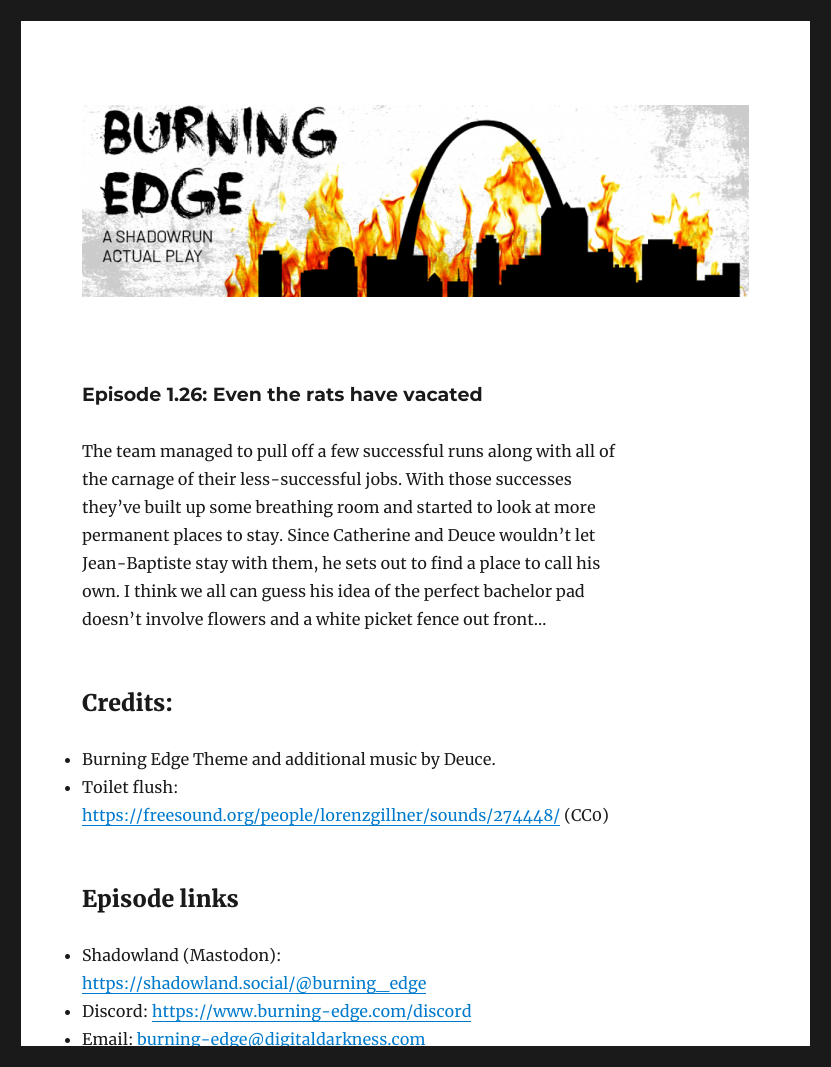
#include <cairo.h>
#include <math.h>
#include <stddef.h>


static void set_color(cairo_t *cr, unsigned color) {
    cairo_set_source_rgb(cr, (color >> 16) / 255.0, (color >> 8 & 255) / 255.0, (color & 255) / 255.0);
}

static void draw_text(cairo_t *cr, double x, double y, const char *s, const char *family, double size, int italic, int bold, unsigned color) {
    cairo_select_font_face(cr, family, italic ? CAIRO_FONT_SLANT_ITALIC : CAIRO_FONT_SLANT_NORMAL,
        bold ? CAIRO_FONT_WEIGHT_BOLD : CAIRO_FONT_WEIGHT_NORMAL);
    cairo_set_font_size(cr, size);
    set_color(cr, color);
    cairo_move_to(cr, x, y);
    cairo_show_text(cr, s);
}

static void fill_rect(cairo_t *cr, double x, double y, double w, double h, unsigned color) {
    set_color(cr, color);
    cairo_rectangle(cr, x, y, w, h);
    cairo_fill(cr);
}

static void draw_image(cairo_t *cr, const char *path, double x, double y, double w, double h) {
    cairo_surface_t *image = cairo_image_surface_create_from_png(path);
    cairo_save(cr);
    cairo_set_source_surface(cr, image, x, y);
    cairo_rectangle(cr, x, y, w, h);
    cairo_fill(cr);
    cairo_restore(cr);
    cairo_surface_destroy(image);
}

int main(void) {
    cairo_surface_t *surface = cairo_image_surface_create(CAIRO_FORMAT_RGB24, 831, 1067);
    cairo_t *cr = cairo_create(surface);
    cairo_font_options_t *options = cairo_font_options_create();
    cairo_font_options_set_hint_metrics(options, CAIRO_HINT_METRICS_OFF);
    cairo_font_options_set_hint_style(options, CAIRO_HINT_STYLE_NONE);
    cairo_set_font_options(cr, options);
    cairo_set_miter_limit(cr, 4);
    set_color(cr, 0x1A1A1A);
    cairo_paint(cr);
    fill_rect(cr, 21, 21, 789, 1025, 0xFFFFFF);
    draw_image(cr, "assets/img1.png", 82, 105, 667, 192);
    draw_text(cr, 82, 401, "Episode 1.26: Even the rats have vacated", "Montserrat Thin", 19, 0, 0, 0x1A1A1A);
    draw_text(cr, 82, 457, "The team managed to pull off a few successful runs along with all of", "Merriweather", 16, 0, 0, 0x1A1A1A);
    draw_text(cr, 82, 485, "the carnage of their less-successful jobs. With those successes", "Merriweather", 16, 0, 0, 0x1A1A1A);
    draw_text(cr, 82, 513, "they’ve built up some breathing room and started to look at more", "Merriweather", 16, 0, 0, 0x1A1A1A);
    draw_text(cr, 82, 541, "permanent places to stay. Since Catherine and Deuce wouldn’t let", "Merriweather", 16, 0, 0, 0x1A1A1A);
    draw_text(cr, 82, 569, "Jean-Baptiste stay with them, he sets out to find a place to call his", "Merriweather", 16, 0, 0, 0x1A1A1A);
    draw_text(cr, 82, 597, "own. I think we all can guess his idea of the perfect bachelor pad", "Merriweather", 16, 0, 0, 0x1A1A1A);
    draw_text(cr, 82, 625, "doesn’t involve flowers and a white picket fence out front…", "Merriweather", 16, 0, 0, 0x1A1A1A);
    draw_text(cr, 82, 711, "Credits:", "Merriweather Black", 23, 0, 0, 0x1A1A1A);
    cairo_new_path(cr);
    cairo_arc(cr, 67.5, 760.5, 2.5, 0, 2 * M_PI);
    cairo_fill(cr);
    draw_text(cr, 82, 765, "Burning Edge Theme and additional music by Deuce.", "Merriweather", 16, 0, 0, 0x1A1A1A);
    cairo_new_path(cr);
    cairo_arc(cr, 67.5, 788.5, 2.5, 0, 2 * M_PI);
    cairo_fill(cr);
    draw_text(cr, 82, 793, "Toilet flush:", "Merriweather", 16, 0, 0, 0x1A1A1A);
    fill_rect(cr, 82, 825, 478, 1, 0x007ACC);
    draw_text(cr, 82, 821, "https://freesound.org/people/lorenzgillner/sounds/274448/", "Merriweather", 16, 0, 0, 0x007ACC);
    draw_text(cr, 564, 821, "(CC0)", "Merriweather", 16, 0, 0, 0x1A1A1A);
    draw_text(cr, 82, 907, "Episode links", "Merriweather Black", 23, 0, 0, 0x1A1A1A);
    cairo_new_path(cr);
    cairo_arc(cr, 67.5, 956.5, 2.5, 0, 2 * M_PI);
    cairo_fill(cr);
    draw_text(cr, 82, 961, "Shadowland (Mastodon):", "Merriweather", 16, 0, 0, 0x1A1A1A);
    fill_rect(cr, 82, 993, 344, 1, 0x007ACC);
    draw_text(cr, 82, 989, "https://shadowland.social/@burning_edge", "Merriweather", 16, 0, 0, 0x007ACC);
    set_color(cr, 0x1A1A1A);
    cairo_new_path(cr);
    cairo_arc(cr, 67.5, 1012.5, 2.5, 0, 2 * M_PI);
    cairo_fill(cr);
    draw_text(cr, 82, 1017, "Discord:", "Merriweather", 16, 0, 0, 0x1A1A1A);
    fill_rect(cr, 152, 1021, 319, 1, 0x007ACC);
    draw_text(cr, 152, 1017, "https://www.burning-edge.com/discord", "Merriweather", 16, 0, 0, 0x007ACC);
    set_color(cr, 0x1A1A1A);
    cairo_new_path(cr);
    cairo_arc(cr, 67.5, 1040.5, 2.5, 0, 2 * M_PI);
    cairo_fill(cr);
    draw_text(cr, 82, 1045, "Email:", "Merriweather", 16, 0, 0, 0x1A1A1A);
    draw_text(cr, 137, 1045, "burning-edge@digitaldarkness.com", "Merriweather", 16, 0, 0, 0x007ACC);
    fill_rect(cr, 191, 1046, 99, 4, 0x1A1A1A);
    cairo_surface_write_to_png(surface, "output.png");
    cairo_font_options_destroy(options);
    cairo_destroy(cr);
    cairo_surface_destroy(surface);
    return 0;
}
